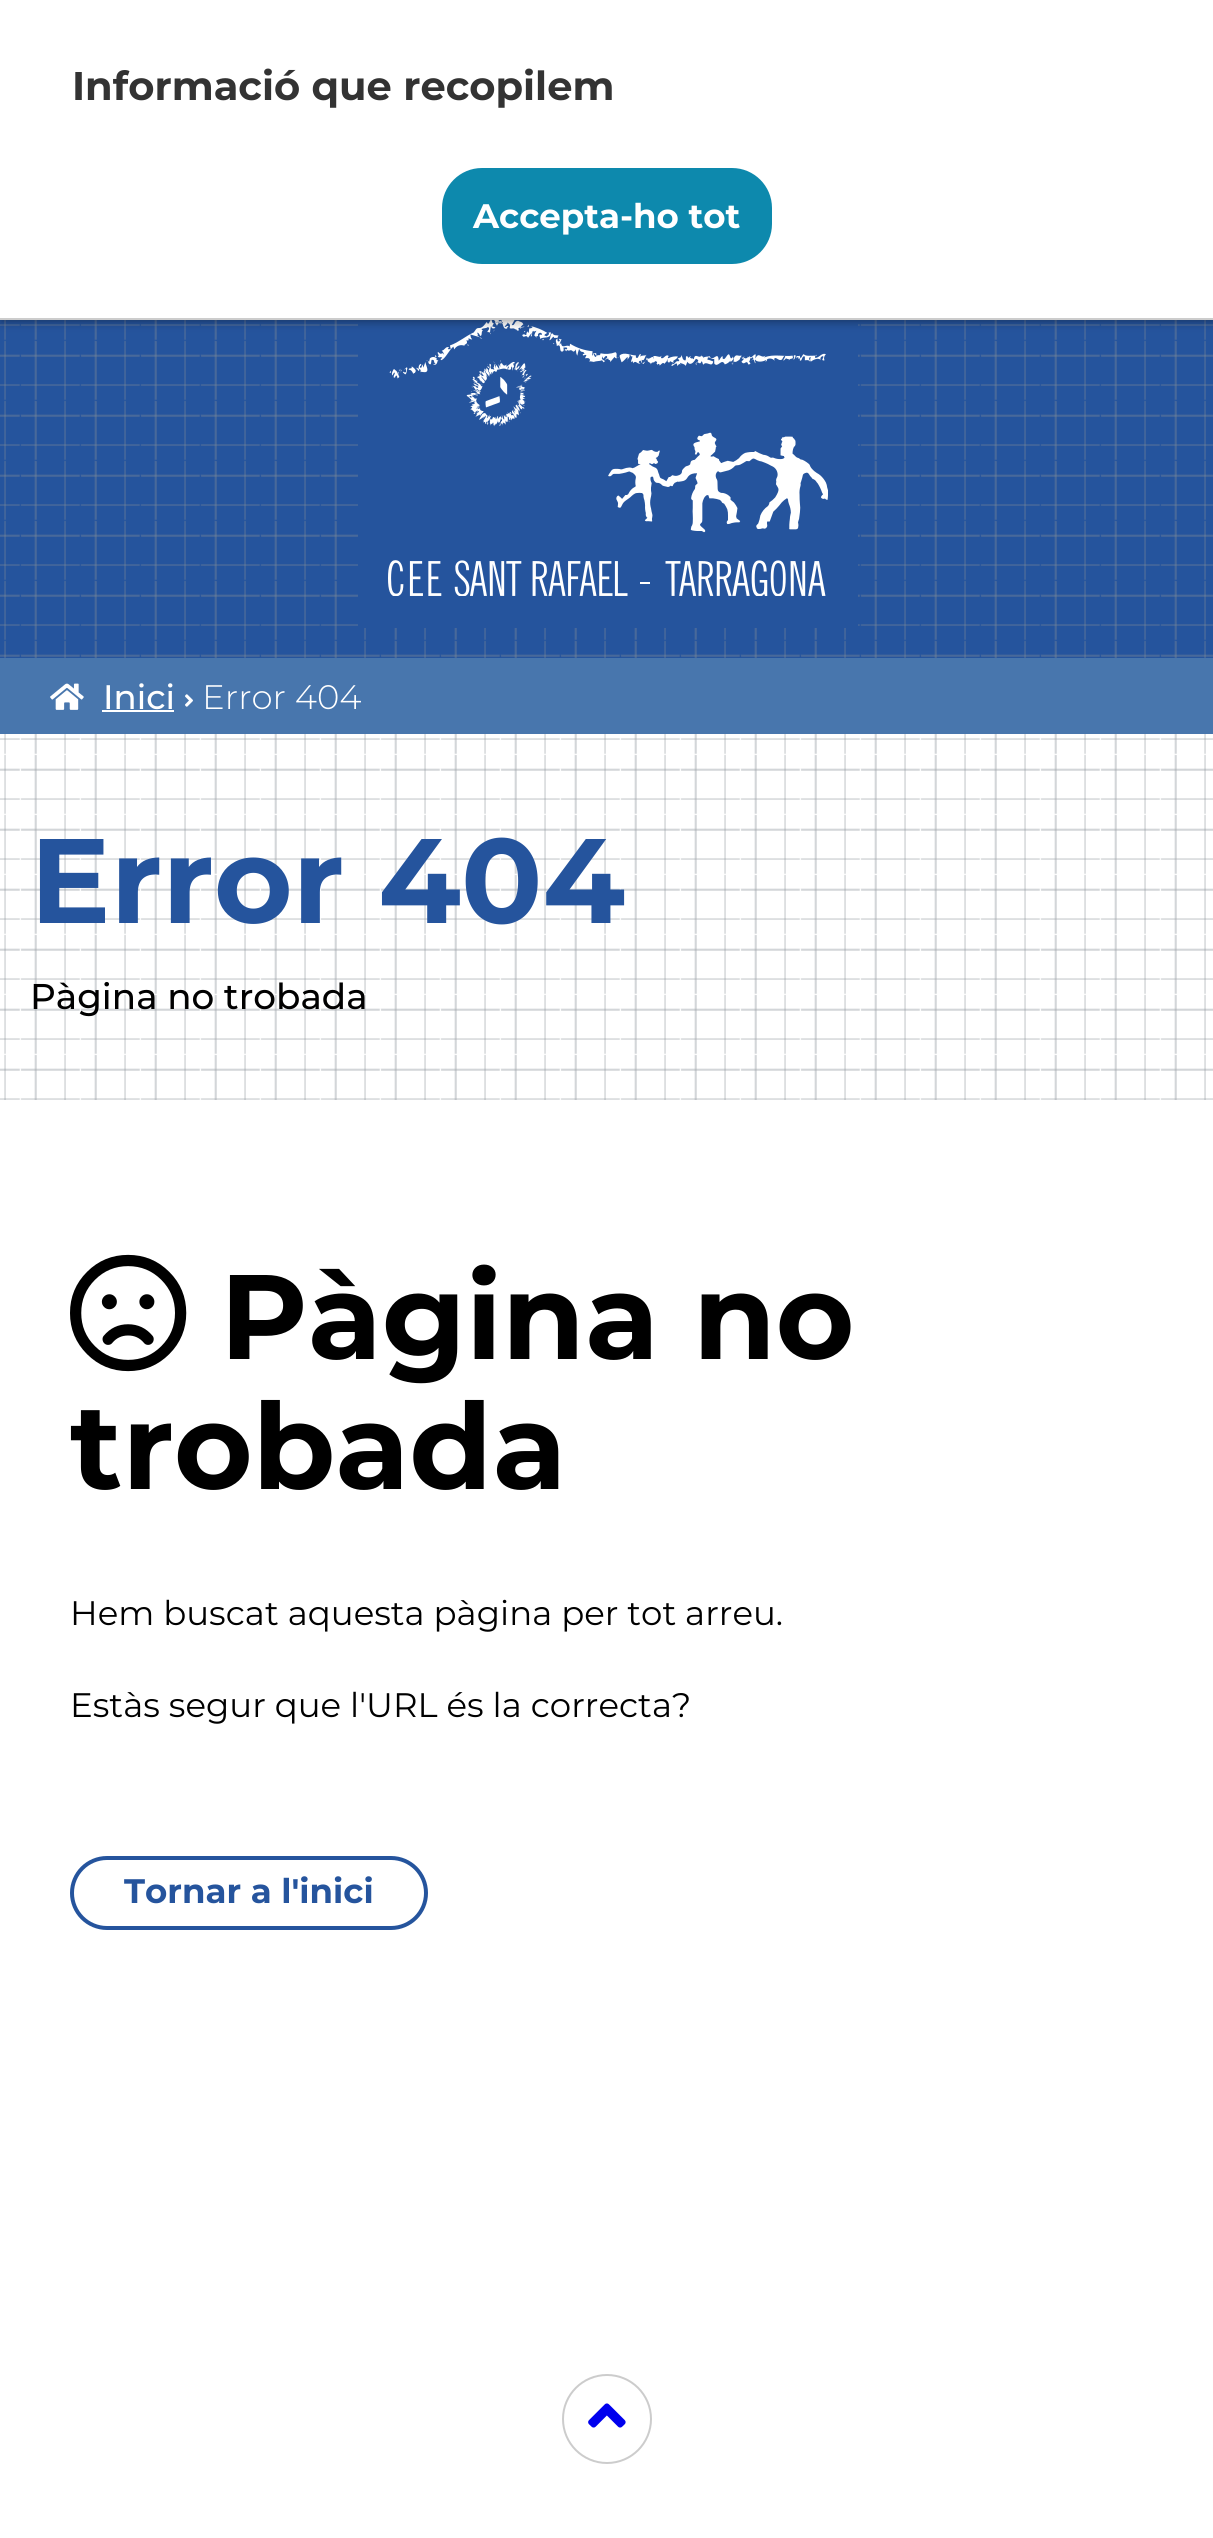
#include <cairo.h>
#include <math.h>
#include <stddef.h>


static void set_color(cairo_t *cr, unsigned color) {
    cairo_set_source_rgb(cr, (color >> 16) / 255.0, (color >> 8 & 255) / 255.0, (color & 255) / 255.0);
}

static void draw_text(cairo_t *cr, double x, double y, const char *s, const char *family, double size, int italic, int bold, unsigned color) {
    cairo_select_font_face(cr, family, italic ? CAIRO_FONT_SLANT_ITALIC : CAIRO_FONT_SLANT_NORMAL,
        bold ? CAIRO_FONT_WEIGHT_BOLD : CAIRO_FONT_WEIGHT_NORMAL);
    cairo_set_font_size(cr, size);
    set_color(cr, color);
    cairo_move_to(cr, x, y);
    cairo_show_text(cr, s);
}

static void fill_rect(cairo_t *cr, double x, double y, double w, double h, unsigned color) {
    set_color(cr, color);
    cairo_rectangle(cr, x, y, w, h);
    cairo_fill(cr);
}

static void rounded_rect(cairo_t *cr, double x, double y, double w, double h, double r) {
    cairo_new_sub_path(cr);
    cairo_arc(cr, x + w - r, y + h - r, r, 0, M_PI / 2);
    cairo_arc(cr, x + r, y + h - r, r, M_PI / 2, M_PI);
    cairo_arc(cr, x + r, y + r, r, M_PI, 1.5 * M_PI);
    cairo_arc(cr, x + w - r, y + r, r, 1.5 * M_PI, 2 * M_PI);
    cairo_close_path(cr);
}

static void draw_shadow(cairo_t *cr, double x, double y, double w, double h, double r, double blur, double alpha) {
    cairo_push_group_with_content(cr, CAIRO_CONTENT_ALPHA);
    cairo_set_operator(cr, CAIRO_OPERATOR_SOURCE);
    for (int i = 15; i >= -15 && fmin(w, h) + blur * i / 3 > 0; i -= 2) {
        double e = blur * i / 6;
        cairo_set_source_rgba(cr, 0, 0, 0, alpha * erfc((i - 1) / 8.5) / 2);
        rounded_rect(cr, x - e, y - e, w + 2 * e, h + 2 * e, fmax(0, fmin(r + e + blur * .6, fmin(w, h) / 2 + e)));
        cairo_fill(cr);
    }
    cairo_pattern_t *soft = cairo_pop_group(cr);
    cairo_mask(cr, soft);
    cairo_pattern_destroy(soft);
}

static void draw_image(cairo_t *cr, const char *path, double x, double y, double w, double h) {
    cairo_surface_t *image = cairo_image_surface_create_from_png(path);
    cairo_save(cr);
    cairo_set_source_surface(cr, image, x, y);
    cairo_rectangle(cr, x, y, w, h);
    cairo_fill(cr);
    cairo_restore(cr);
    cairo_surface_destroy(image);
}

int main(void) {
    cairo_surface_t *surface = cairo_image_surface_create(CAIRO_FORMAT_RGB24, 1213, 2538);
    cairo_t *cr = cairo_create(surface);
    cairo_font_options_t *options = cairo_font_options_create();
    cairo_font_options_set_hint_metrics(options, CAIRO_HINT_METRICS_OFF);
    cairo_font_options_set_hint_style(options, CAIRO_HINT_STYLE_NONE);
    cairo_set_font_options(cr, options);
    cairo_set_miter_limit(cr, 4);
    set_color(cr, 0xFFFFFF);
    cairo_paint(cr);
    fill_rect(cr, 0, 320, 1213, 338, 0x25549D);
    draw_image(cr, "assets/img2.png", 0, 320, 1213, 338);
    fill_rect(cr, 358, 320, 500, 308, 0x25549D);
    draw_image(cr, "assets/img3.png", 388, 320, 440, 276);
    set_color(cr, 0x000000);
    draw_shadow(cr, 0, 4, 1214, 320, 0, 4, 0.24);
    draw_shadow(cr, 0, 0, 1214, 320, 0, 2, 0.12);
    fill_rect(cr, 0, 0, 1213, 318, 0xFFFFFF);
    fill_rect(cr, 0, 318, 1213, 2, 0xCCCCCC);
    draw_text(cr, 72, 100, "Informació que recopilem", "Montserrat", 40, 0, 1, 0x333333);
    set_color(cr, 0x0D89AD);
    rounded_rect(cr, 444, 170, 326, 92, 38);
    cairo_fill_preserve(cr);
    cairo_set_line_width(cr, 4);
    cairo_stroke(cr);
    draw_text(cr, 473, 228, "Accepta-ho tot", "Montserrat", 34, 0, 1, 0xFFFFFF);
    cairo_new_path(cr);
    cairo_arc(cr, 607, 2419, 44, 0, 2 * M_PI);
    set_color(cr, 0xCCCCCC);
    cairo_set_line_width(cr, 2);
    cairo_stroke(cr);
    draw_image(cr, "assets/img1.png", 588, 2403, 38, 25);
    fill_rect(cr, 0, 658, 1213, 76, 0x4876AD);
    draw_image(cr, "assets/img4.png", 50, 683, 34, 27);
    draw_text(cr, 103, 709, "Inici", "Montserrat Medium", 34, 0, 0, 0xFFFFFF);
    fill_rect(cr, 102, 710, 72, 2, 0xFFFFFF);
    draw_image(cr, "assets/img5.png", 185, 694, 8, 13);
    draw_text(cr, 202, 709, "Error 404", "Montserrat Light", 34, 0, 0, 0xFFFFFF);
    draw_image(cr, "assets/img6.png", 0, 734, 1213, 366);
    draw_text(cr, 30, 923, "Error 404", "Montserrat", 120, 0, 1, 0x25549D);
    draw_text(cr, 30, 1009, "Pàgina no trobada", "Montserrat Medium", 35.75, 0, 0, 0x000000);
    draw_image(cr, "assets/img7.png", 70, 1254, 117, 118);
    draw_text(cr, 220, 1359, "Pàgina no", "Montserrat", 120, 0, 1, 0x000000);
    draw_text(cr, 70, 1489, "trobada", "Montserrat", 120, 0, 1, 0x000000);
    draw_text(cr, 70, 1625, "Hem buscat aquesta pàgina per tot arreu.", "Montserrat", 34, 0, 0, 0x000000);
    draw_text(cr, 70, 1717, "Estàs segur que l'URL és la correcta?", "Montserrat", 34, 0, 0, 0x000000);
    rounded_rect(cr, 72, 1858, 354, 70, 35);
    set_color(cr, 0x25549D);
    cairo_set_line_width(cr, 4);
    cairo_stroke(cr);
    draw_text(cr, 124, 1903, "Tornar a l'inici", "Montserrat", 34, 0, 1, 0x25549D);
    cairo_surface_write_to_png(surface, "output.png");
    cairo_font_options_destroy(options);
    cairo_destroy(cr);
    cairo_surface_destroy(surface);
    return 0;
}
